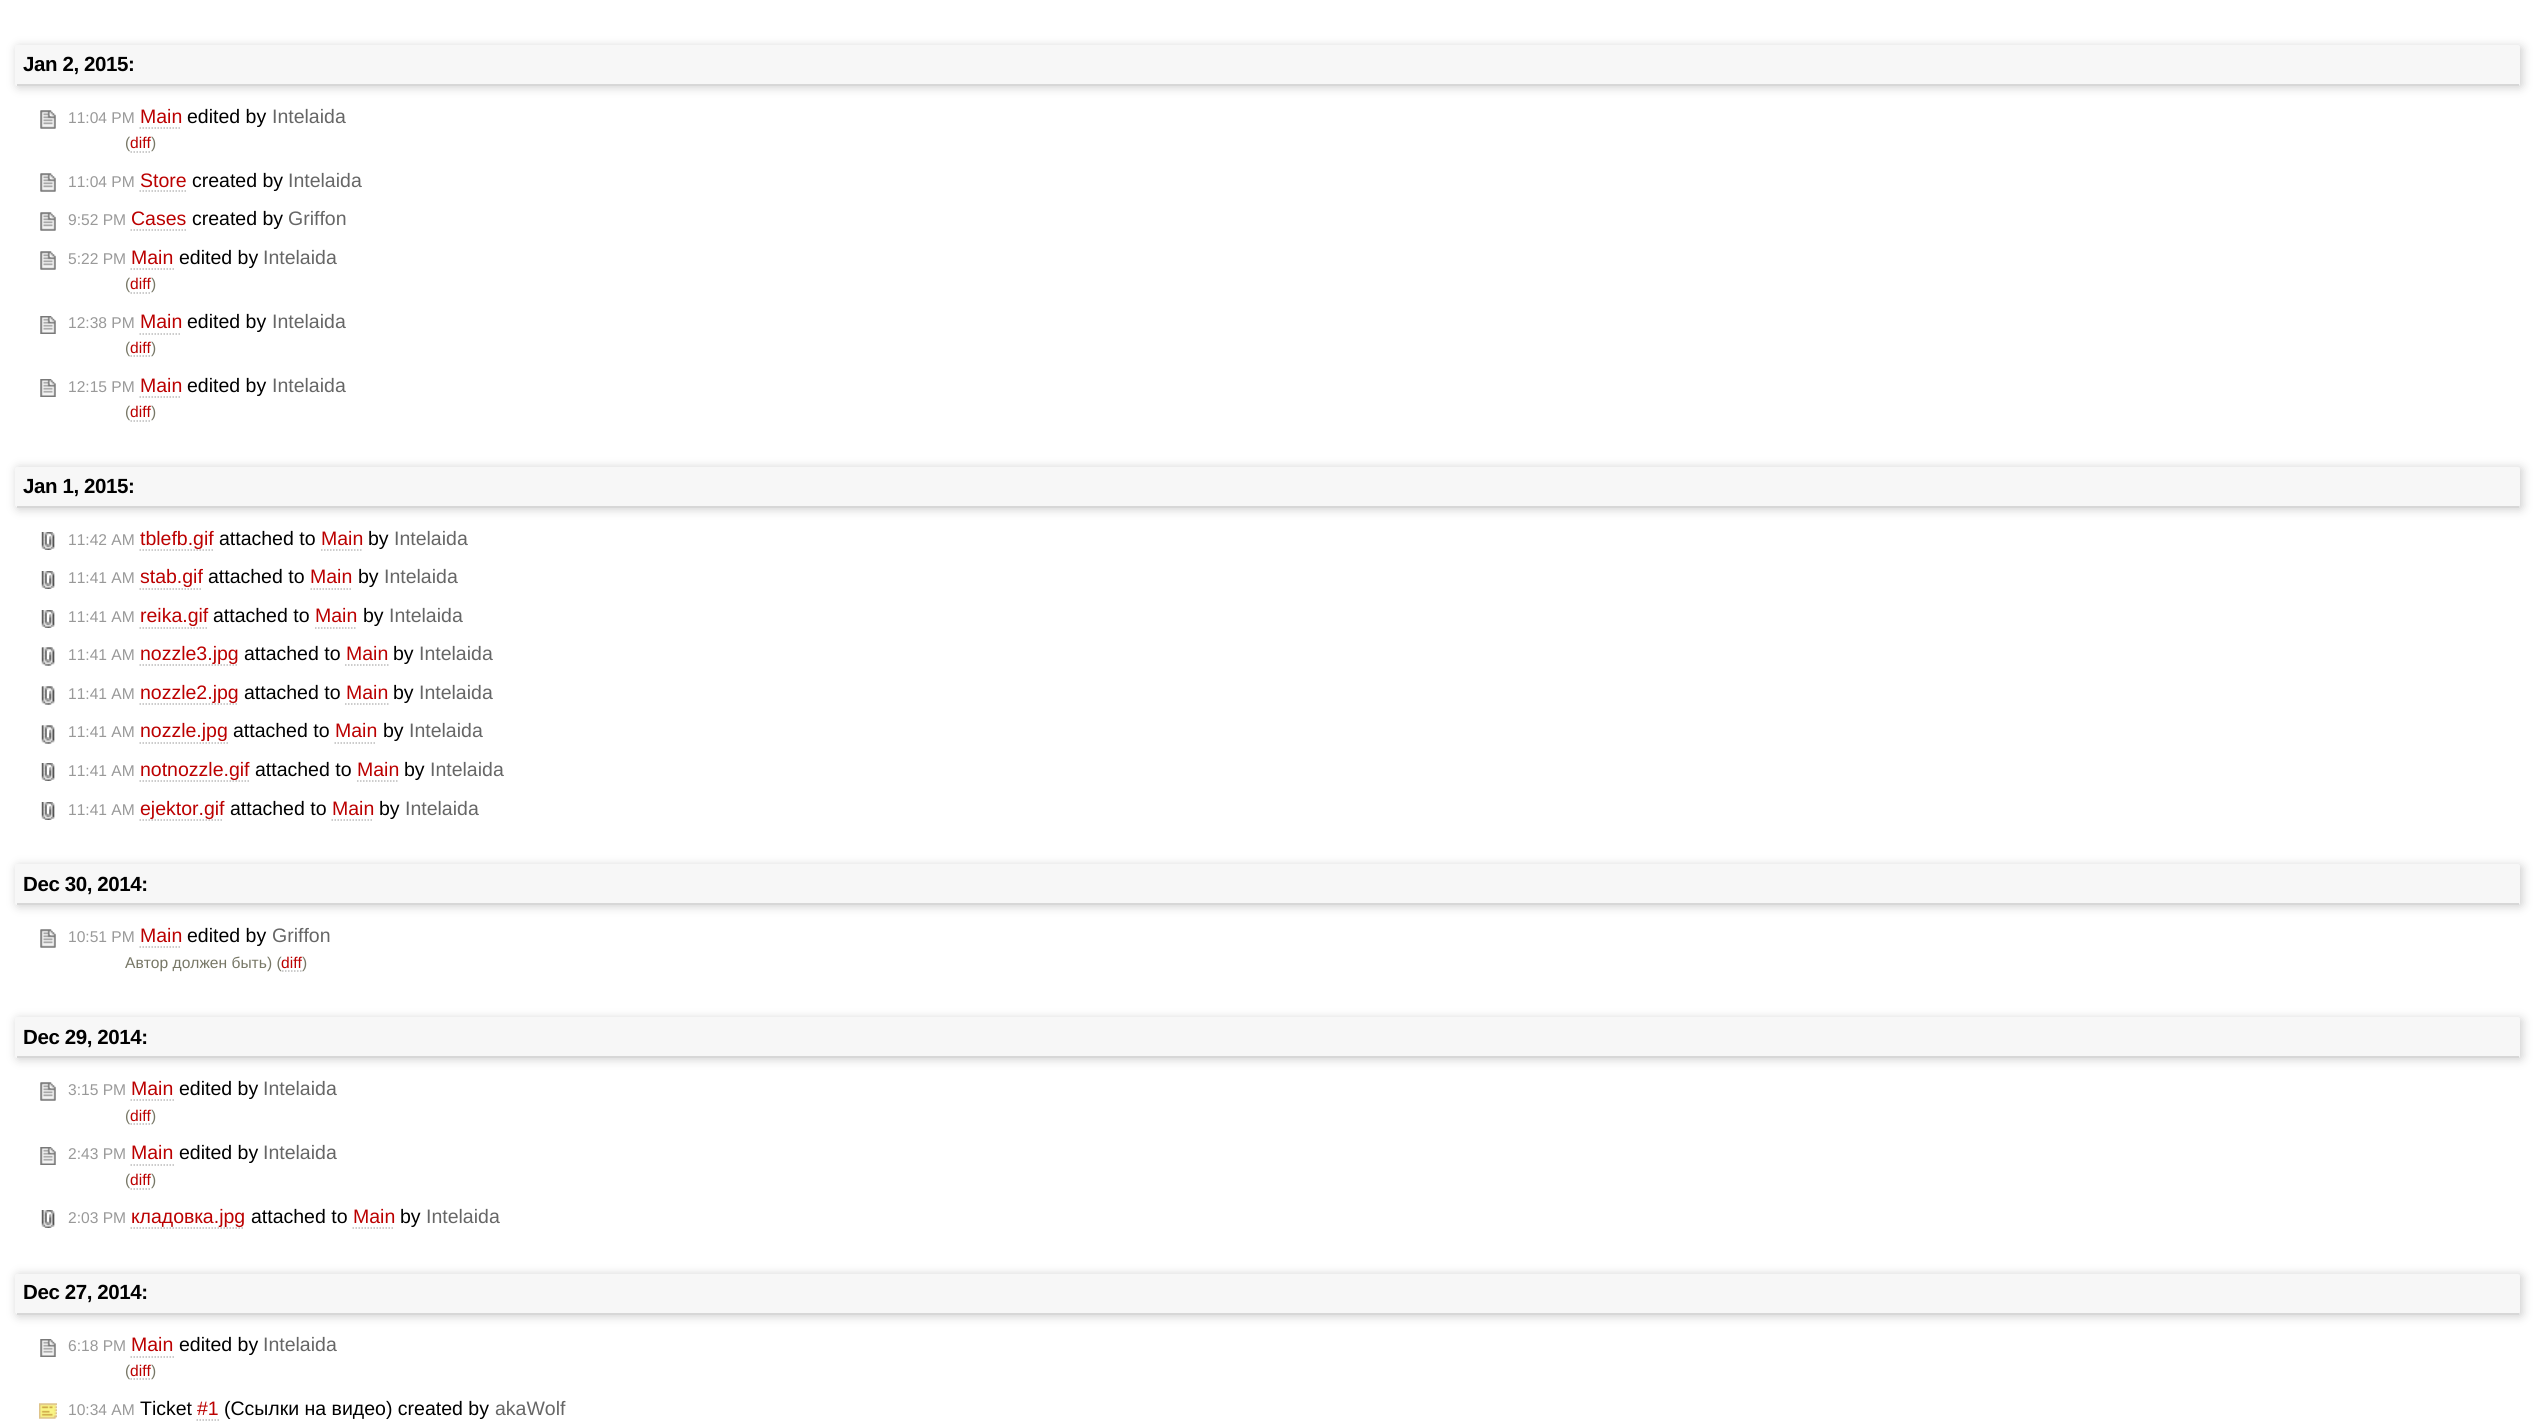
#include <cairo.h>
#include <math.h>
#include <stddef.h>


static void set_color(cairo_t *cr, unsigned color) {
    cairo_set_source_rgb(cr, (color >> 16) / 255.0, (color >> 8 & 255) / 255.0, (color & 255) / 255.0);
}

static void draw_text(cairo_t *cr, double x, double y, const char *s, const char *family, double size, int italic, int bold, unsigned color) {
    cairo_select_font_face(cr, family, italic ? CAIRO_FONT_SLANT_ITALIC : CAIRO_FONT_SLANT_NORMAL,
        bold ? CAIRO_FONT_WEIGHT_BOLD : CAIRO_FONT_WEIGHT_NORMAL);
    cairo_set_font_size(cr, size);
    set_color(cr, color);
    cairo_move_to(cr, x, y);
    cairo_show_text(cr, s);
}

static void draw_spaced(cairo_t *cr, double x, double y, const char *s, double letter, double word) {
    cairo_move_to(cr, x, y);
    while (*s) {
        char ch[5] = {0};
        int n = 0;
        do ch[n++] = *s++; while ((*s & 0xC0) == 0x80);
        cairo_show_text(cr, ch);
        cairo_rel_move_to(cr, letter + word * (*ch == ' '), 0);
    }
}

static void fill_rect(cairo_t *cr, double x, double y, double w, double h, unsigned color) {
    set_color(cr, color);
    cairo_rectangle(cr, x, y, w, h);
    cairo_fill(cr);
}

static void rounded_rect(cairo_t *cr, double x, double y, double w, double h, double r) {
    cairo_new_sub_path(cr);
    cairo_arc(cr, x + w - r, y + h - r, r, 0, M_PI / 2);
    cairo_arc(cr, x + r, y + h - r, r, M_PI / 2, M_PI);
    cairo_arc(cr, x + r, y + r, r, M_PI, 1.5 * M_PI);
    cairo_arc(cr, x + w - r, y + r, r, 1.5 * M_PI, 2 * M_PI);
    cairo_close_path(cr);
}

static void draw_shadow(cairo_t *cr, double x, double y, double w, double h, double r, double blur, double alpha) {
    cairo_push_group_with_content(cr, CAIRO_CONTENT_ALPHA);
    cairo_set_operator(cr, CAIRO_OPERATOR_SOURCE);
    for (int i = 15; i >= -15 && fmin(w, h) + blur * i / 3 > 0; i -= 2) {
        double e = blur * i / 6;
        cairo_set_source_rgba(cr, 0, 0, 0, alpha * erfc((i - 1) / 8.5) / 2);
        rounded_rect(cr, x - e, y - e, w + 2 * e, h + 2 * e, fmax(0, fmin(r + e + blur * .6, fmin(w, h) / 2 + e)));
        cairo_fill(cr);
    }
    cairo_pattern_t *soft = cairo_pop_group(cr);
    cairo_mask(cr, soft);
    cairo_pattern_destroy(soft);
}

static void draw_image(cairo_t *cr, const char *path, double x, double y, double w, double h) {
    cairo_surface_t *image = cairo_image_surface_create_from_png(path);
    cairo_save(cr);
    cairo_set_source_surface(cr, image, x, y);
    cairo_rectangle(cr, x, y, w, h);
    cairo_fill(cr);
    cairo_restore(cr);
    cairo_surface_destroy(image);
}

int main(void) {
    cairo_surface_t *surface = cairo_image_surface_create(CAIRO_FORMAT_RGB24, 2534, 1426);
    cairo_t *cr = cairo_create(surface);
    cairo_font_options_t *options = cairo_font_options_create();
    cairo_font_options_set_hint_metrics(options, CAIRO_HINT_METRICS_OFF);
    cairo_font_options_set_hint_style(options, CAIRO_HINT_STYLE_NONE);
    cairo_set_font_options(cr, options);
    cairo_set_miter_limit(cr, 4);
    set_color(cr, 0xFFFFFF);
    cairo_paint(cr);
    set_color(cr, 0xCCCCCC);
    draw_shadow(cr, 17, 47, 2505, 40, 2, 5, 1);
    set_color(cr, 0xF7F7F7);
    rounded_rect(cr, 15, 45, 2505, 41, 2);
    cairo_fill(cr);
    fill_rect(cr, 17, 84, 2502, 2, 0xD7D7D7);
    cairo_select_font_face(cr, "Liberation Sans", CAIRO_FONT_SLANT_NORMAL, CAIRO_FONT_WEIGHT_BOLD);
    cairo_set_font_size(cr, 20.5);
    set_color(cr, 0x000000);
    draw_spaced(cr, 23, 71, "Jan 2, 2015:", -0.4, 0);
    draw_image(cr, "assets/img1.png", 40, 110, 16, 19);
    draw_image(cr, "assets/img2.png", 40, 110, 16, 19);
    draw_text(cr, 68, 123, "11:04 PM", "Liberation Sans", 15.6, 0, 0, 0x999999);
    draw_text(cr, 140, 123, "Main", "Liberation Sans", 19.5, 0, 0, 0xBB0000);
    cairo_new_path(cr);
    cairo_move_to(cr, 139.5, 128);
    cairo_line_to(cr, 181.5, 128);
    set_color(cr, 0xBBBBBB);
    cairo_set_line_width(cr, 1.5);
    cairo_set_dash(cr, (double[]){1.5, 1.5}, 2, 0);
    cairo_stroke(cr);
    draw_text(cr, 187, 123, "edited by", "Liberation Sans", 19.5, 0, 0, 0x000000);
    draw_text(cr, 272, 123, "Intelaida", "Liberation Sans", 19.5, 0, 0, 0x666666);
    draw_text(cr, 125, 148, "(", "Liberation Sans", 15.6, 0, 0, 0x777766);
    draw_text(cr, 130, 148, "diff", "Liberation Sans", 15.6, 0, 0, 0xBB0000);
    cairo_new_path(cr);
    cairo_move_to(cr, 130.5, 152);
    cairo_line_to(cr, 151.5, 152);
    set_color(cr, 0xBBBBBB);
    cairo_stroke(cr);
    draw_text(cr, 151, 148, ")", "Liberation Sans", 15.6, 0, 0, 0x777766);
    draw_image(cr, "assets/img1.png", 40, 173, 16, 19);
    draw_image(cr, "assets/img2.png", 40, 173, 16, 19);
    draw_text(cr, 68, 187, "11:04 PM", "Liberation Sans", 15.6, 0, 0, 0x999999);
    draw_text(cr, 140, 187, "Store", "Liberation Sans", 19.5, 0, 0, 0xBB0000);
    cairo_new_path(cr);
    cairo_move_to(cr, 139.5, 191);
    cairo_line_to(cr, 186, 191);
    set_color(cr, 0xBBBBBB);
    cairo_stroke(cr);
    draw_text(cr, 192, 187, "created by", "Liberation Sans", 19.5, 0, 0, 0x000000);
    draw_text(cr, 288, 187, "Intelaida", "Liberation Sans", 19.5, 0, 0, 0x666666);
    draw_image(cr, "assets/img1.png", 40, 212, 16, 19);
    draw_image(cr, "assets/img2.png", 40, 212, 16, 19);
    draw_text(cr, 68, 225, "9:52 PM", "Liberation Sans", 15.6, 0, 0, 0x999999);
    draw_text(cr, 131, 225, "Cases", "Liberation Sans", 19.5, 0, 0, 0xBB0000);
    cairo_new_path(cr);
    cairo_move_to(cr, 130.5, 230);
    cairo_line_to(cr, 186, 230);
    set_color(cr, 0xBBBBBB);
    cairo_stroke(cr);
    draw_text(cr, 192, 225, "created by", "Liberation Sans", 19.5, 0, 0, 0x000000);
    draw_text(cr, 288, 225, "Griffon", "Liberation Sans", 19.5, 0, 0, 0x666666);
    draw_image(cr, "assets/img1.png", 40, 251, 16, 19);
    draw_image(cr, "assets/img2.png", 40, 251, 16, 19);
    draw_text(cr, 68, 264, "5:22 PM", "Liberation Sans", 15.6, 0, 0, 0x999999);
    draw_text(cr, 131, 264, "Main", "Liberation Sans", 19.5, 0, 0, 0xBB0000);
    cairo_new_path(cr);
    cairo_move_to(cr, 130.5, 269);
    cairo_line_to(cr, 174, 269);
    set_color(cr, 0xBBBBBB);
    cairo_stroke(cr);
    draw_text(cr, 179, 264, "edited by", "Liberation Sans", 19.5, 0, 0, 0x000000);
    draw_text(cr, 263, 264, "Intelaida", "Liberation Sans", 19.5, 0, 0, 0x666666);
    draw_text(cr, 125, 289, "(", "Liberation Sans", 15.6, 0, 0, 0x777766);
    draw_text(cr, 130, 289, "diff", "Liberation Sans", 15.6, 0, 0, 0xBB0000);
    cairo_new_path(cr);
    cairo_move_to(cr, 130.5, 293);
    cairo_line_to(cr, 151.5, 293);
    set_color(cr, 0xBBBBBB);
    cairo_stroke(cr);
    draw_text(cr, 151, 289, ")", "Liberation Sans", 15.6, 0, 0, 0x777766);
    draw_image(cr, "assets/img3.png", 40, 316, 16, 18);
    draw_image(cr, "assets/img4.png", 40, 316, 16, 18);
    draw_text(cr, 68, 328, "12:38 PM", "Liberation Sans", 15.6, 0, 0, 0x999999);
    draw_text(cr, 140, 328, "Main", "Liberation Sans", 19.5, 0, 0, 0xBB0000);
    cairo_new_path(cr);
    cairo_move_to(cr, 139.5, 334);
    cairo_line_to(cr, 181.5, 334);
    set_color(cr, 0xBBBBBB);
    cairo_stroke(cr);
    draw_text(cr, 187, 328, "edited by", "Liberation Sans", 19.5, 0, 0, 0x000000);
    draw_text(cr, 272, 328, "Intelaida", "Liberation Sans", 19.5, 0, 0, 0x666666);
    draw_text(cr, 125, 353, "(", "Liberation Sans", 15.6, 0, 0, 0x777766);
    draw_text(cr, 130, 353, "diff", "Liberation Sans", 15.6, 0, 0, 0xBB0000);
    cairo_new_path(cr);
    cairo_move_to(cr, 130.5, 356);
    cairo_line_to(cr, 151.5, 356);
    set_color(cr, 0xBBBBBB);
    cairo_stroke(cr);
    draw_text(cr, 151, 353, ")", "Liberation Sans", 15.6, 0, 0, 0x777766);
    draw_image(cr, "assets/img3.png", 40, 379, 16, 18);
    draw_image(cr, "assets/img4.png", 40, 379, 16, 18);
    draw_text(cr, 68, 392, "12:15 PM", "Liberation Sans", 15.6, 0, 0, 0x999999);
    draw_text(cr, 140, 392, "Main", "Liberation Sans", 19.5, 0, 0, 0xBB0000);
    cairo_new_path(cr);
    cairo_move_to(cr, 139.5, 397);
    cairo_line_to(cr, 181.5, 397);
    set_color(cr, 0xBBBBBB);
    cairo_stroke(cr);
    draw_text(cr, 187, 392, "edited by", "Liberation Sans", 19.5, 0, 0, 0x000000);
    draw_text(cr, 272, 392, "Intelaida", "Liberation Sans", 19.5, 0, 0, 0x666666);
    draw_text(cr, 125, 417, "(", "Liberation Sans", 15.6, 0, 0, 0x777766);
    draw_text(cr, 130, 417, "diff", "Liberation Sans", 15.6, 0, 0, 0xBB0000);
    cairo_new_path(cr);
    cairo_move_to(cr, 130.5, 421);
    cairo_line_to(cr, 151.5, 421);
    set_color(cr, 0xBBBBBB);
    cairo_stroke(cr);
    draw_text(cr, 151, 417, ")", "Liberation Sans", 15.6, 0, 0, 0x777766);
    set_color(cr, 0xCCCCCC);
    draw_shadow(cr, 17, 468, 2505, 41, 2, 5, 1);
    set_color(cr, 0xF7F7F7);
    rounded_rect(cr, 15, 467, 2505, 40, 2);
    cairo_fill(cr);
    fill_rect(cr, 17, 506, 2502, 2, 0xD7D7D7);
    cairo_select_font_face(cr, "Liberation Sans", CAIRO_FONT_SLANT_NORMAL, CAIRO_FONT_WEIGHT_BOLD);
    cairo_set_font_size(cr, 20.5);
    set_color(cr, 0x000000);
    draw_spaced(cr, 23, 493, "Jan 1, 2015:", -0.4, 0);
    draw_image(cr, "assets/img5.png", 41, 532, 14, 18);
    draw_image(cr, "assets/img6.png", 41, 532, 14, 18);
    draw_text(cr, 68, 545, "11:42 AM", "Liberation Sans", 15.6, 0, 0, 0x999999);
    cairo_new_path(cr);
    cairo_move_to(cr, 139.5, 550);
    cairo_line_to(cr, 213, 550);
    set_color(cr, 0xBBBBBB);
    cairo_stroke(cr);
    draw_text(cr, 140, 545, "tblefb.gif", "Liberation Sans", 19.5, 0, 0, 0xBB0000);
    draw_text(cr, 219, 545, "attached to", "Liberation Sans", 19.5, 0, 0, 0x000000);
    draw_text(cr, 321, 545, "Main", "Liberation Sans", 19.5, 0, 0, 0xBB0000);
    cairo_new_path(cr);
    cairo_move_to(cr, 321, 550);
    cairo_line_to(cr, 363, 550);
    set_color(cr, 0xBBBBBB);
    cairo_stroke(cr);
    draw_text(cr, 368, 545, "by", "Liberation Sans", 19.5, 0, 0, 0x000000);
    draw_text(cr, 394, 545, "Intelaida", "Liberation Sans", 19.5, 0, 0, 0x666666);
    draw_image(cr, "assets/img5.png", 41, 571, 14, 18);
    draw_image(cr, "assets/img6.png", 41, 571, 14, 18);
    draw_text(cr, 68, 583, "11:41 AM", "Liberation Sans", 15.6, 0, 0, 0x999999);
    draw_text(cr, 140, 583, "stab.gif", "Liberation Sans", 19.5, 0, 0, 0xBB0000);
    cairo_new_path(cr);
    cairo_move_to(cr, 139.5, 589);
    cairo_line_to(cr, 202.5, 589);
    set_color(cr, 0xBBBBBB);
    cairo_stroke(cr);
    draw_text(cr, 208, 583, "attached to", "Liberation Sans", 19.5, 0, 0, 0x000000);
    draw_text(cr, 310, 583, "Main", "Liberation Sans", 19.5, 0, 0, 0xBB0000);
    cairo_new_path(cr);
    cairo_move_to(cr, 310.5, 589);
    cairo_line_to(cr, 352.5, 589);
    set_color(cr, 0xBBBBBB);
    cairo_stroke(cr);
    draw_text(cr, 358, 583, "by", "Liberation Sans", 19.5, 0, 0, 0x000000);
    draw_text(cr, 384, 583, "Intelaida", "Liberation Sans", 19.5, 0, 0, 0x666666);
    draw_image(cr, "assets/img5.png", 41, 610, 14, 18);
    draw_image(cr, "assets/img6.png", 41, 610, 14, 18);
    draw_text(cr, 68, 622, "11:41 AM", "Liberation Sans", 15.6, 0, 0, 0x999999);
    draw_text(cr, 140, 622, "reika.gif", "Liberation Sans", 19.5, 0, 0, 0xBB0000);
    cairo_new_path(cr);
    cairo_move_to(cr, 139.5, 628);
    cairo_line_to(cr, 208.5, 628);
    set_color(cr, 0xBBBBBB);
    cairo_stroke(cr);
    draw_text(cr, 213, 622, "attached to", "Liberation Sans", 19.5, 0, 0, 0x000000);
    draw_text(cr, 315, 622, "Main", "Liberation Sans", 19.5, 0, 0, 0xBB0000);
    cairo_new_path(cr);
    cairo_move_to(cr, 315, 628);
    cairo_line_to(cr, 357, 628);
    set_color(cr, 0xBBBBBB);
    cairo_stroke(cr);
    draw_text(cr, 363, 622, "by", "Liberation Sans", 19.5, 0, 0, 0x000000);
    draw_text(cr, 389, 622, "Intelaida", "Liberation Sans", 19.5, 0, 0, 0x666666);
    draw_image(cr, "assets/img7.png", 41, 647, 14, 19);
    draw_image(cr, "assets/img8.png", 41, 647, 14, 19);
    draw_text(cr, 68, 660, "11:41 AM", "Liberation Sans", 15.6, 0, 0, 0x999999);
    cairo_new_path(cr);
    cairo_move_to(cr, 139.5, 665);
    cairo_line_to(cr, 238.5, 665);
    set_color(cr, 0xBBBBBB);
    cairo_stroke(cr);
    draw_text(cr, 140, 660, "nozzle3.jpg", "Liberation Sans", 19.5, 0, 0, 0xBB0000);
    draw_text(cr, 244, 660, "attached to", "Liberation Sans", 19.5, 0, 0, 0x000000);
    draw_text(cr, 346, 660, "Main", "Liberation Sans", 19.5, 0, 0, 0xBB0000);
    cairo_new_path(cr);
    cairo_move_to(cr, 345, 665);
    cairo_line_to(cr, 388.5, 665);
    set_color(cr, 0xBBBBBB);
    cairo_stroke(cr);
    draw_text(cr, 393, 660, "by", "Liberation Sans", 19.5, 0, 0, 0x000000);
    draw_text(cr, 419, 660, "Intelaida", "Liberation Sans", 19.5, 0, 0, 0x666666);
    draw_image(cr, "assets/img7.png", 41, 686, 14, 19);
    draw_image(cr, "assets/img8.png", 41, 686, 14, 19);
    draw_text(cr, 68, 699, "11:41 AM", "Liberation Sans", 15.6, 0, 0, 0x999999);
    cairo_new_path(cr);
    cairo_move_to(cr, 139.5, 704);
    cairo_line_to(cr, 238.5, 704);
    set_color(cr, 0xBBBBBB);
    cairo_stroke(cr);
    draw_text(cr, 140, 699, "nozzle2.jpg", "Liberation Sans", 19.5, 0, 0, 0xBB0000);
    draw_text(cr, 244, 699, "attached to", "Liberation Sans", 19.5, 0, 0, 0x000000);
    draw_text(cr, 346, 699, "Main", "Liberation Sans", 19.5, 0, 0, 0xBB0000);
    cairo_new_path(cr);
    cairo_move_to(cr, 345, 704);
    cairo_line_to(cr, 388.5, 704);
    set_color(cr, 0xBBBBBB);
    cairo_stroke(cr);
    draw_text(cr, 393, 699, "by", "Liberation Sans", 19.5, 0, 0, 0x000000);
    draw_text(cr, 419, 699, "Intelaida", "Liberation Sans", 19.5, 0, 0, 0x666666);
    draw_image(cr, "assets/img7.png", 41, 725, 14, 19);
    draw_image(cr, "assets/img8.png", 41, 725, 14, 19);
    draw_text(cr, 68, 737, "11:41 AM", "Liberation Sans", 15.6, 0, 0, 0x999999);
    draw_text(cr, 140, 737, "nozzle.jpg", "Liberation Sans", 19.5, 0, 0, 0xBB0000);
    cairo_new_path(cr);
    cairo_move_to(cr, 139.5, 743);
    cairo_line_to(cr, 228, 743);
    set_color(cr, 0xBBBBBB);
    cairo_stroke(cr);
    draw_text(cr, 233, 737, "attached to", "Liberation Sans", 19.5, 0, 0, 0x000000);
    draw_text(cr, 335, 737, "Main", "Liberation Sans", 19.5, 0, 0, 0xBB0000);
    cairo_new_path(cr);
    cairo_move_to(cr, 334.5, 743);
    cairo_line_to(cr, 376.5, 743);
    set_color(cr, 0xBBBBBB);
    cairo_stroke(cr);
    draw_text(cr, 383, 737, "by", "Liberation Sans", 19.5, 0, 0, 0x000000);
    draw_text(cr, 409, 737, "Intelaida", "Liberation Sans", 19.5, 0, 0, 0x666666);
    draw_image(cr, "assets/img5.png", 41, 763, 14, 18);
    draw_image(cr, "assets/img6.png", 41, 763, 14, 18);
    draw_text(cr, 68, 776, "11:41 AM", "Liberation Sans", 15.6, 0, 0, 0x999999);
    cairo_new_path(cr);
    cairo_move_to(cr, 139.5, 781);
    cairo_line_to(cr, 249, 781);
    set_color(cr, 0xBBBBBB);
    cairo_stroke(cr);
    draw_text(cr, 140, 776, "notnozzle.gif", "Liberation Sans", 19.5, 0, 0, 0xBB0000);
    draw_text(cr, 255, 776, "attached to", "Liberation Sans", 19.5, 0, 0, 0x000000);
    draw_text(cr, 357, 776, "Main", "Liberation Sans", 19.5, 0, 0, 0xBB0000);
    cairo_new_path(cr);
    cairo_move_to(cr, 357, 781);
    cairo_line_to(cr, 399, 781);
    set_color(cr, 0xBBBBBB);
    cairo_stroke(cr);
    draw_text(cr, 404, 776, "by", "Liberation Sans", 19.5, 0, 0, 0x000000);
    draw_text(cr, 430, 776, "Intelaida", "Liberation Sans", 19.5, 0, 0, 0x666666);
    draw_image(cr, "assets/img5.png", 41, 802, 14, 18);
    draw_image(cr, "assets/img6.png", 41, 802, 14, 18);
    draw_text(cr, 68, 815, "11:41 AM", "Liberation Sans", 15.6, 0, 0, 0x999999);
    cairo_new_path(cr);
    cairo_move_to(cr, 139.5, 820);
    cairo_line_to(cr, 223.5, 820);
    set_color(cr, 0xBBBBBB);
    cairo_stroke(cr);
    draw_text(cr, 140, 815, "ejektor.gif", "Liberation Sans", 19.5, 0, 0, 0xBB0000);
    draw_text(cr, 230, 815, "attached to", "Liberation Sans", 19.5, 0, 0, 0x000000);
    draw_text(cr, 332, 815, "Main", "Liberation Sans", 19.5, 0, 0, 0xBB0000);
    cairo_new_path(cr);
    cairo_move_to(cr, 331.5, 820);
    cairo_line_to(cr, 373.5, 820);
    set_color(cr, 0xBBBBBB);
    cairo_stroke(cr);
    draw_text(cr, 379, 815, "by", "Liberation Sans", 19.5, 0, 0, 0x000000);
    draw_text(cr, 405, 815, "Intelaida", "Liberation Sans", 19.5, 0, 0, 0x666666);
    set_color(cr, 0xCCCCCC);
    draw_shadow(cr, 17, 866, 2505, 40, 2, 5, 1);
    set_color(cr, 0xF7F7F7);
    rounded_rect(cr, 15, 864, 2505, 41, 2);
    cairo_fill(cr);
    fill_rect(cr, 17, 903, 2502, 2, 0xD7D7D7);
    cairo_select_font_face(cr, "Liberation Sans", CAIRO_FONT_SLANT_NORMAL, CAIRO_FONT_WEIGHT_BOLD);
    cairo_set_font_size(cr, 20.5);
    set_color(cr, 0x000000);
    draw_spaced(cr, 23, 891, "Dec 30, 2014:", -0.4, 0);
    draw_image(cr, "assets/img1.png", 40, 929, 16, 19);
    draw_image(cr, "assets/img2.png", 40, 929, 16, 19);
    draw_text(cr, 68, 942, "10:51 PM", "Liberation Sans", 15.6, 0, 0, 0x999999);
    draw_text(cr, 140, 942, "Main", "Liberation Sans", 19.5, 0, 0, 0xBB0000);
    cairo_new_path(cr);
    cairo_move_to(cr, 139.5, 947);
    cairo_line_to(cr, 181.5, 947);
    set_color(cr, 0xBBBBBB);
    cairo_stroke(cr);
    draw_text(cr, 187, 942, "edited by", "Liberation Sans", 19.5, 0, 0, 0x000000);
    draw_text(cr, 272, 942, "Griffon", "Liberation Sans", 19.5, 0, 0, 0x666666);
    draw_text(cr, 125, 968, "Автор должен быть) (", "Liberation Sans", 15.6, 0, 0, 0x777766);
    draw_text(cr, 281, 968, "diff", "Liberation Sans", 15.6, 0, 0, 0xBB0000);
    cairo_new_path(cr);
    cairo_move_to(cr, 282, 971);
    cairo_line_to(cr, 303, 971);
    set_color(cr, 0xBBBBBB);
    cairo_stroke(cr);
    draw_text(cr, 302, 968, ")", "Liberation Sans", 15.6, 0, 0, 0x777766);
    set_color(cr, 0xCCCCCC);
    draw_shadow(cr, 17, 1019, 2505, 40, 2, 5, 1);
    set_color(cr, 0xF7F7F7);
    rounded_rect(cr, 15, 1017, 2505, 41, 2);
    cairo_fill(cr);
    fill_rect(cr, 17, 1056, 2502, 2, 0xD7D7D7);
    cairo_select_font_face(cr, "Liberation Sans", CAIRO_FONT_SLANT_NORMAL, CAIRO_FONT_WEIGHT_BOLD);
    cairo_set_font_size(cr, 20.5);
    set_color(cr, 0x000000);
    draw_spaced(cr, 23, 1044, "Dec 29, 2014:", -0.4, 0);
    draw_image(cr, "assets/img1.png", 40, 1082, 16, 19);
    draw_image(cr, "assets/img2.png", 40, 1082, 16, 19);
    draw_text(cr, 68, 1095, "3:15 PM", "Liberation Sans", 15.6, 0, 0, 0x999999);
    draw_text(cr, 131, 1095, "Main", "Liberation Sans", 19.5, 0, 0, 0xBB0000);
    cairo_new_path(cr);
    cairo_move_to(cr, 130.5, 1100);
    cairo_line_to(cr, 174, 1100);
    set_color(cr, 0xBBBBBB);
    cairo_stroke(cr);
    draw_text(cr, 179, 1095, "edited by", "Liberation Sans", 19.5, 0, 0, 0x000000);
    draw_text(cr, 263, 1095, "Intelaida", "Liberation Sans", 19.5, 0, 0, 0x666666);
    draw_text(cr, 125, 1121, "(", "Liberation Sans", 15.6, 0, 0, 0x777766);
    draw_text(cr, 130, 1121, "diff", "Liberation Sans", 15.6, 0, 0, 0xBB0000);
    cairo_new_path(cr);
    cairo_move_to(cr, 130.5, 1124);
    cairo_line_to(cr, 151.5, 1124);
    set_color(cr, 0xBBBBBB);
    cairo_stroke(cr);
    draw_text(cr, 151, 1121, ")", "Liberation Sans", 15.6, 0, 0, 0x777766);
    draw_image(cr, "assets/img3.png", 40, 1147, 16, 18);
    draw_image(cr, "assets/img4.png", 40, 1147, 16, 18);
    draw_text(cr, 68, 1159, "2:43 PM", "Liberation Sans", 15.6, 0, 0, 0x999999);
    draw_text(cr, 131, 1159, "Main", "Liberation Sans", 19.5, 0, 0, 0xBB0000);
    cairo_new_path(cr);
    cairo_move_to(cr, 130.5, 1165);
    cairo_line_to(cr, 174, 1165);
    set_color(cr, 0xBBBBBB);
    cairo_stroke(cr);
    draw_text(cr, 179, 1159, "edited by", "Liberation Sans", 19.5, 0, 0, 0x000000);
    draw_text(cr, 263, 1159, "Intelaida", "Liberation Sans", 19.5, 0, 0, 0x666666);
    draw_text(cr, 125, 1185, "(", "Liberation Sans", 15.6, 0, 0, 0x777766);
    draw_text(cr, 130, 1185, "diff", "Liberation Sans", 15.6, 0, 0, 0xBB0000);
    cairo_new_path(cr);
    cairo_move_to(cr, 130.5, 1189);
    cairo_line_to(cr, 151.5, 1189);
    set_color(cr, 0xBBBBBB);
    cairo_stroke(cr);
    draw_text(cr, 151, 1185, ")", "Liberation Sans", 15.6, 0, 0, 0x777766);
    draw_image(cr, "assets/img5.png", 41, 1210, 14, 18);
    draw_image(cr, "assets/img6.png", 41, 1210, 14, 18);
    draw_text(cr, 68, 1223, "2:03 PM", "Liberation Sans", 15.6, 0, 0, 0x999999);
    cairo_new_path(cr);
    cairo_move_to(cr, 130.5, 1228);
    cairo_line_to(cr, 244.5, 1228);
    set_color(cr, 0xBBBBBB);
    cairo_stroke(cr);
    draw_text(cr, 131, 1223, "кладовка.jpg", "Liberation Sans", 19.5, 0, 0, 0xBB0000);
    draw_text(cr, 251, 1223, "attached to", "Liberation Sans", 19.5, 0, 0, 0x000000);
    draw_text(cr, 353, 1223, "Main", "Liberation Sans", 19.5, 0, 0, 0xBB0000);
    cairo_new_path(cr);
    cairo_move_to(cr, 352.5, 1228);
    cairo_line_to(cr, 394.5, 1228);
    set_color(cr, 0xBBBBBB);
    cairo_stroke(cr);
    draw_text(cr, 400, 1223, "by", "Liberation Sans", 19.5, 0, 0, 0x000000);
    draw_text(cr, 426, 1223, "Intelaida", "Liberation Sans", 19.5, 0, 0, 0x666666);
    set_color(cr, 0xCCCCCC);
    draw_shadow(cr, 17, 1275, 2505, 41, 2, 5, 1);
    set_color(cr, 0xF7F7F7);
    rounded_rect(cr, 15, 1274, 2505, 40, 2);
    cairo_fill(cr);
    fill_rect(cr, 17, 1313, 2502, 2, 0xD7D7D7);
    cairo_select_font_face(cr, "Liberation Sans", CAIRO_FONT_SLANT_NORMAL, CAIRO_FONT_WEIGHT_BOLD);
    cairo_set_font_size(cr, 20.5);
    set_color(cr, 0x000000);
    draw_spaced(cr, 23, 1299, "Dec 27, 2014:", -0.4, 0);
    draw_image(cr, "assets/img3.png", 40, 1339, 16, 18);
    draw_image(cr, "assets/img4.png", 40, 1339, 16, 18);
    draw_text(cr, 68, 1351, "6:18 PM", "Liberation Sans", 15.6, 0, 0, 0x999999);
    draw_text(cr, 131, 1351, "Main", "Liberation Sans", 19.5, 0, 0, 0xBB0000);
    cairo_new_path(cr);
    cairo_move_to(cr, 130.5, 1357);
    cairo_line_to(cr, 174, 1357);
    set_color(cr, 0xBBBBBB);
    cairo_stroke(cr);
    draw_text(cr, 179, 1351, "edited by", "Liberation Sans", 19.5, 0, 0, 0x000000);
    draw_text(cr, 263, 1351, "Intelaida", "Liberation Sans", 19.5, 0, 0, 0x666666);
    draw_text(cr, 125, 1376, "(", "Liberation Sans", 15.6, 0, 0, 0x777766);
    draw_text(cr, 130, 1376, "diff", "Liberation Sans", 15.6, 0, 0, 0xBB0000);
    cairo_new_path(cr);
    cairo_move_to(cr, 130.5, 1379);
    cairo_line_to(cr, 151.5, 1379);
    set_color(cr, 0xBBBBBB);
    cairo_stroke(cr);
    draw_text(cr, 151, 1376, ")", "Liberation Sans", 15.6, 0, 0, 0x777766);
    draw_image(cr, "assets/img9.png", 39, 1403, 18, 16);
    draw_image(cr, "assets/img10.png", 39, 1403, 18, 16);
    draw_text(cr, 68, 1415, "10:34 AM", "Liberation Sans", 15.6, 0, 0, 0x999999);
    draw_text(cr, 140, 1415, "Ticket", "Liberation Sans", 19.5, 0, 0, 0x000000);
    draw_text(cr, 197, 1415, "#1", "Liberation Sans", 19.5, 0, 0, 0xBB0000);
    cairo_new_path(cr);
    cairo_move_to(cr, 196.5, 1420);
    cairo_line_to(cr, 219, 1420);
    set_color(cr, 0xBBBBBB);
    cairo_stroke(cr);
    draw_text(cr, 224, 1415, "(Ссылки на видео) created by", "Liberation Sans", 19.5, 0, 0, 0x000000);
    draw_text(cr, 495, 1415, "akaWolf", "Liberation Sans", 19.5, 0, 0, 0x666666);
    cairo_surface_write_to_png(surface, "output.png");
    cairo_font_options_destroy(options);
    cairo_destroy(cr);
    cairo_surface_destroy(surface);
    return 0;
}
